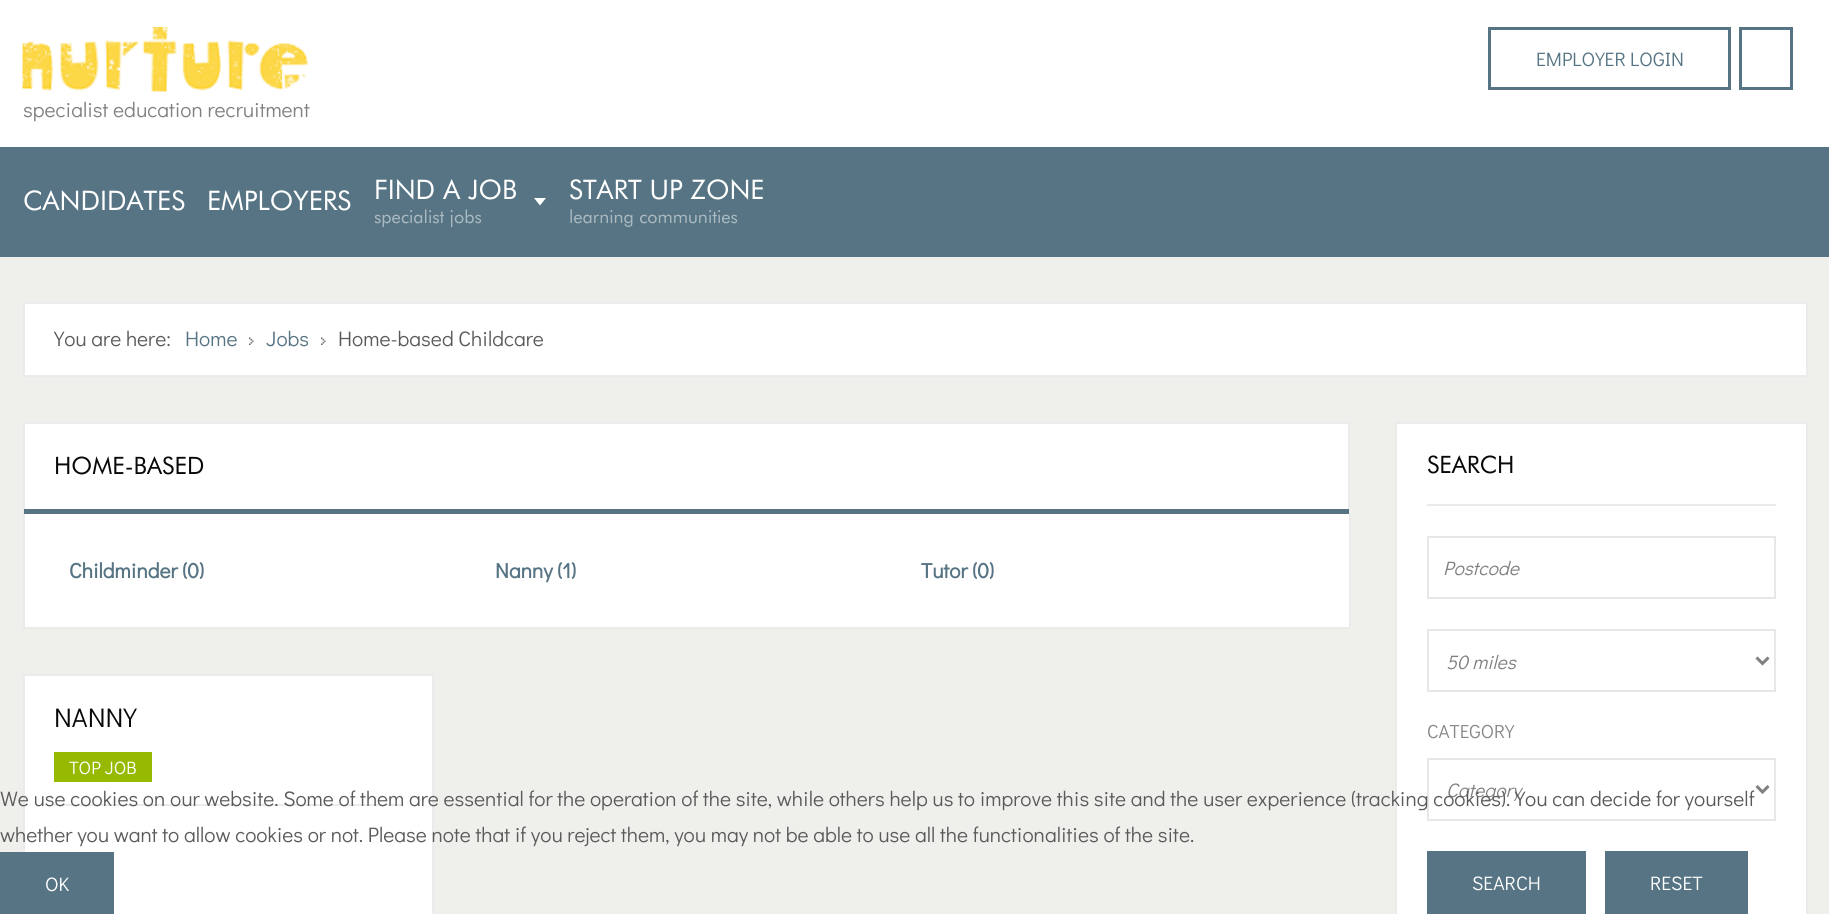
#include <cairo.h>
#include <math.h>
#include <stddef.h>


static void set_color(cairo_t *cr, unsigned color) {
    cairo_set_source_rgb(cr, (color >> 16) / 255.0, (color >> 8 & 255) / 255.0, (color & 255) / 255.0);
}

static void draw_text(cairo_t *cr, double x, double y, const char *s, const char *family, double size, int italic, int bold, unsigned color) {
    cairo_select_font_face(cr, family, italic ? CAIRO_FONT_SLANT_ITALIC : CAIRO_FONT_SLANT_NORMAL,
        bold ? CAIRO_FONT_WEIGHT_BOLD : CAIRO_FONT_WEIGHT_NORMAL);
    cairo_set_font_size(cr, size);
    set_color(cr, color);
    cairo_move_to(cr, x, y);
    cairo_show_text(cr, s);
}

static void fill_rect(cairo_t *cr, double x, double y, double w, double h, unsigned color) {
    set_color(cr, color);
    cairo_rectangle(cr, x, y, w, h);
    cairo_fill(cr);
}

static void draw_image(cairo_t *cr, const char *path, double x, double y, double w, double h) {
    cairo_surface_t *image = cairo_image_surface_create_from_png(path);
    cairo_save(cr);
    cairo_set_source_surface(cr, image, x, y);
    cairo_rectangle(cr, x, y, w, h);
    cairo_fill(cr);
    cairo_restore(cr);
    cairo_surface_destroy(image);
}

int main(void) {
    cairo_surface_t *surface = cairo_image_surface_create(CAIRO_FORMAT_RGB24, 1829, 914);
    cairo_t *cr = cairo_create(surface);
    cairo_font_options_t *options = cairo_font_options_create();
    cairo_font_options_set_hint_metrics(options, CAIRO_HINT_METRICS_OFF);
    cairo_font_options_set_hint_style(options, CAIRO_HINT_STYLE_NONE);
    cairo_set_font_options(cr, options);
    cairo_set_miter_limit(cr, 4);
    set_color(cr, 0xEFEFEB);
    cairo_paint(cr);
    fill_rect(cr, 0, 0, 1829, 147, 0xFFFFFF);
    cairo_rectangle(cr, 1489.5, 28.5, 240, 60);
    set_color(cr, 0x567483);
    cairo_set_line_width(cr, 3);
    cairo_stroke(cr);
    draw_text(cr, 1536, 66, "EMPLOYER LOGIN", "Didact Gothic", 19.5, 0, 0, 0x567483);
    cairo_rectangle(cr, 1740.5, 28.5, 51, 60);
    cairo_stroke(cr);
    draw_image(cr, "assets/img1.png", 22, 27, 286, 65);
    draw_text(cr, 23, 117, "specialist education recruitment", "Didact Gothic", 21, 0, 0, 0x808080);
    fill_rect(cr, 0, 147, 1829, 110, 0x567483);
    draw_text(cr, 23, 210, "CANDIDATES", "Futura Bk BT", 27, 0, 0, 0xFFFFFF);
    draw_text(cr, 207, 210, "EMPLOYERS", "Futura Bk BT", 27, 0, 0, 0xFFFFFF);
    draw_text(cr, 374, 199, "FIND A JOB", "Futura Bk BT", 27, 0, 0, 0xFFFFFF);
    draw_text(cr, 374, 223, "specialist jobs", "Futura Bk BT", 18, 0, 0, 0xABBAC1);
    set_color(cr, 0xFFFFFF);
    cairo_new_path(cr);
    cairo_move_to(cr, 534, 198);
    cairo_line_to(cr, 546, 198);
    cairo_line_to(cr, 540, 205.5);
    cairo_close_path(cr);
    cairo_fill(cr);
    draw_text(cr, 569, 199, "START UP ZONE", "Futura Bk BT", 27, 0, 0, 0xFFFFFF);
    draw_text(cr, 569, 223, "learning communities", "Futura Bk BT", 18, 0, 0, 0xABBAC1);
    set_color(cr, 0xFFFFFF);
    cairo_rectangle(cr, 24, 303, 1783, 73);
    cairo_fill_preserve(cr);
    set_color(cr, 0xEBEBEB);
    cairo_set_line_width(cr, 2);
    cairo_stroke(cr);
    draw_text(cr, 54, 346, "You are here:", "Didact Gothic", 21, 0, 0, 0x5A5A5A);
    draw_text(cr, 185, 346, "Home", "Didact Gothic", 21, 0, 0, 0x567483);
    draw_image(cr, "assets/img2.png", 249, 337, 5, 8);
    draw_text(cr, 266, 346, "Jobs", "Didact Gothic", 21, 0, 0, 0x567483);
    draw_image(cr, "assets/img3.png", 321, 337, 5, 8);
    draw_text(cr, 338, 346, "Home-based Childcare", "Didact Gothic", 21, 0, 0, 0x5A5A5A);
    fill_rect(cr, 25, 424, 1323, 85, 0xFFFFFF);
    cairo_rectangle(cr, 24, 423, 1325, 89);
    set_color(cr, 0xEBEBEB);
    cairo_stroke(cr);
    draw_text(cr, 54, 474, "HOME-BASED", "Futura Bk BT", 24, 0, 0, 0x080808);
    fill_rect(cr, 23, 513, 2, 114, 0xEBEBEB);
    fill_rect(cr, 24, 509, 1325, 5, 0x567483);
    fill_rect(cr, 23, 627, 1327, 2, 0xEBEBEB);
    fill_rect(cr, 25, 514, 1324, 113, 0xFFFFFF);
    fill_rect(cr, 1349, 513, 2, 114, 0xEBEBEB);
    draw_text(cr, 69, 578, "Childminder (0)", "Didact Gothic", 21, 0, 1, 0x567483);
    draw_text(cr, 495, 578, "Nanny (1)", "Didact Gothic", 21, 0, 1, 0x567483);
    draw_text(cr, 921, 578, "Tutor (0)", "Didact Gothic", 21, 0, 1, 0x567483);
    set_color(cr, 0xFFFFFF);
    cairo_rectangle(cr, 24, 675, 409, 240);
    cairo_fill_preserve(cr);
    set_color(cr, 0xEBEBEB);
    cairo_stroke(cr);
    fill_rect(cr, 54, 804, 348, 2, 0xEBEBEB);
    draw_text(cr, 54, 727, "NANNY", "Didact Gothic", 27, 0, 0, 0x080808);
    fill_rect(cr, 54, 752, 98, 30, 0x95BA01);
    draw_text(cr, 69, 774, "TOP JOB", "Didact Gothic", 18, 0, 0, 0xFFFFFF);
    cairo_rectangle(cr, 1396, 423, 411, 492);
    cairo_fill_preserve(cr);
    set_color(cr, 0xEBEBEB);
    cairo_stroke(cr);
    fill_rect(cr, 1427, 504, 349, 2, 0xEBEBEB);
    draw_text(cr, 1427, 473, "SEARCH", "Futura Bk BT", 24, 0, 0, 0x080808);
    cairo_rectangle(cr, 1428, 537, 347, 61);
    set_color(cr, 0xE7E7E7);
    cairo_stroke(cr);
    draw_text(cr, 1443, 575, "Postcode", "Didact Gothic", 19.5, 1, 0, 0x808080);
    cairo_rectangle(cr, 1428, 630, 347, 61);
    set_color(cr, 0xE7E7E7);
    cairo_stroke(cr);
    cairo_new_path(cr);
    cairo_move_to(cr, 1756.5, 657.5);
    cairo_line_to(cr, 1762.5, 663.5);
    cairo_line_to(cr, 1768.5, 657.5);
    set_color(cr, 0x808080);
    cairo_set_line_width(cr, 3);
    cairo_stroke(cr);
    draw_text(cr, 1446, 669, "50 miles", "Didact Gothic", 19.5, 1, 0, 0x808080);
    draw_text(cr, 1427, 738, "CATEGORY", "Didact Gothic", 19, 0, 0, 0x878787);
    cairo_rectangle(cr, 1428, 759, 347, 61);
    set_color(cr, 0xE7E7E7);
    cairo_set_line_width(cr, 2);
    cairo_stroke(cr);
    cairo_new_path(cr);
    cairo_move_to(cr, 1756.5, 786);
    cairo_line_to(cr, 1762.5, 792);
    cairo_line_to(cr, 1768.5, 786);
    set_color(cr, 0x808080);
    cairo_set_line_width(cr, 3);
    cairo_stroke(cr);
    draw_text(cr, 1446, 797, "Category", "Didact Gothic", 19.5, 1, 0, 0x808080);
    fill_rect(cr, 1427, 851, 159, 63, 0x567483);
    draw_text(cr, 1472, 890, "SEARCH", "Didact Gothic", 19.5, 0, 0, 0xFFFFFF);
    fill_rect(cr, 1605, 851, 143, 63, 0x567483);
    draw_text(cr, 1650, 890, "RESET", "Didact Gothic", 19.5, 0, 0, 0xFFFFFF);
    draw_text(cr, 0, 806, "We use cookies on our website. Some of them are essential for the operation of the site, while others help us to improve this site and the user experience (tracking cookies). You can decide for yourself", "Didact Gothic", 21, 0, 0, 0x5A5A5A);
    draw_text(cr, 0, 842, "whether you want to allow cookies or not. Please note that if you reject them, you may not be able to use all the functionalities of the site.", "Didact Gothic", 21, 0, 0, 0x5A5A5A);
    fill_rect(cr, 0, 852, 114, 62, 0x567483);
    draw_text(cr, 45, 891, "OK", "Didact Gothic", 19.5, 0, 0, 0xFFFFFF);
    cairo_surface_write_to_png(surface, "output.png");
    cairo_font_options_destroy(options);
    cairo_destroy(cr);
    cairo_surface_destroy(surface);
    return 0;
}
